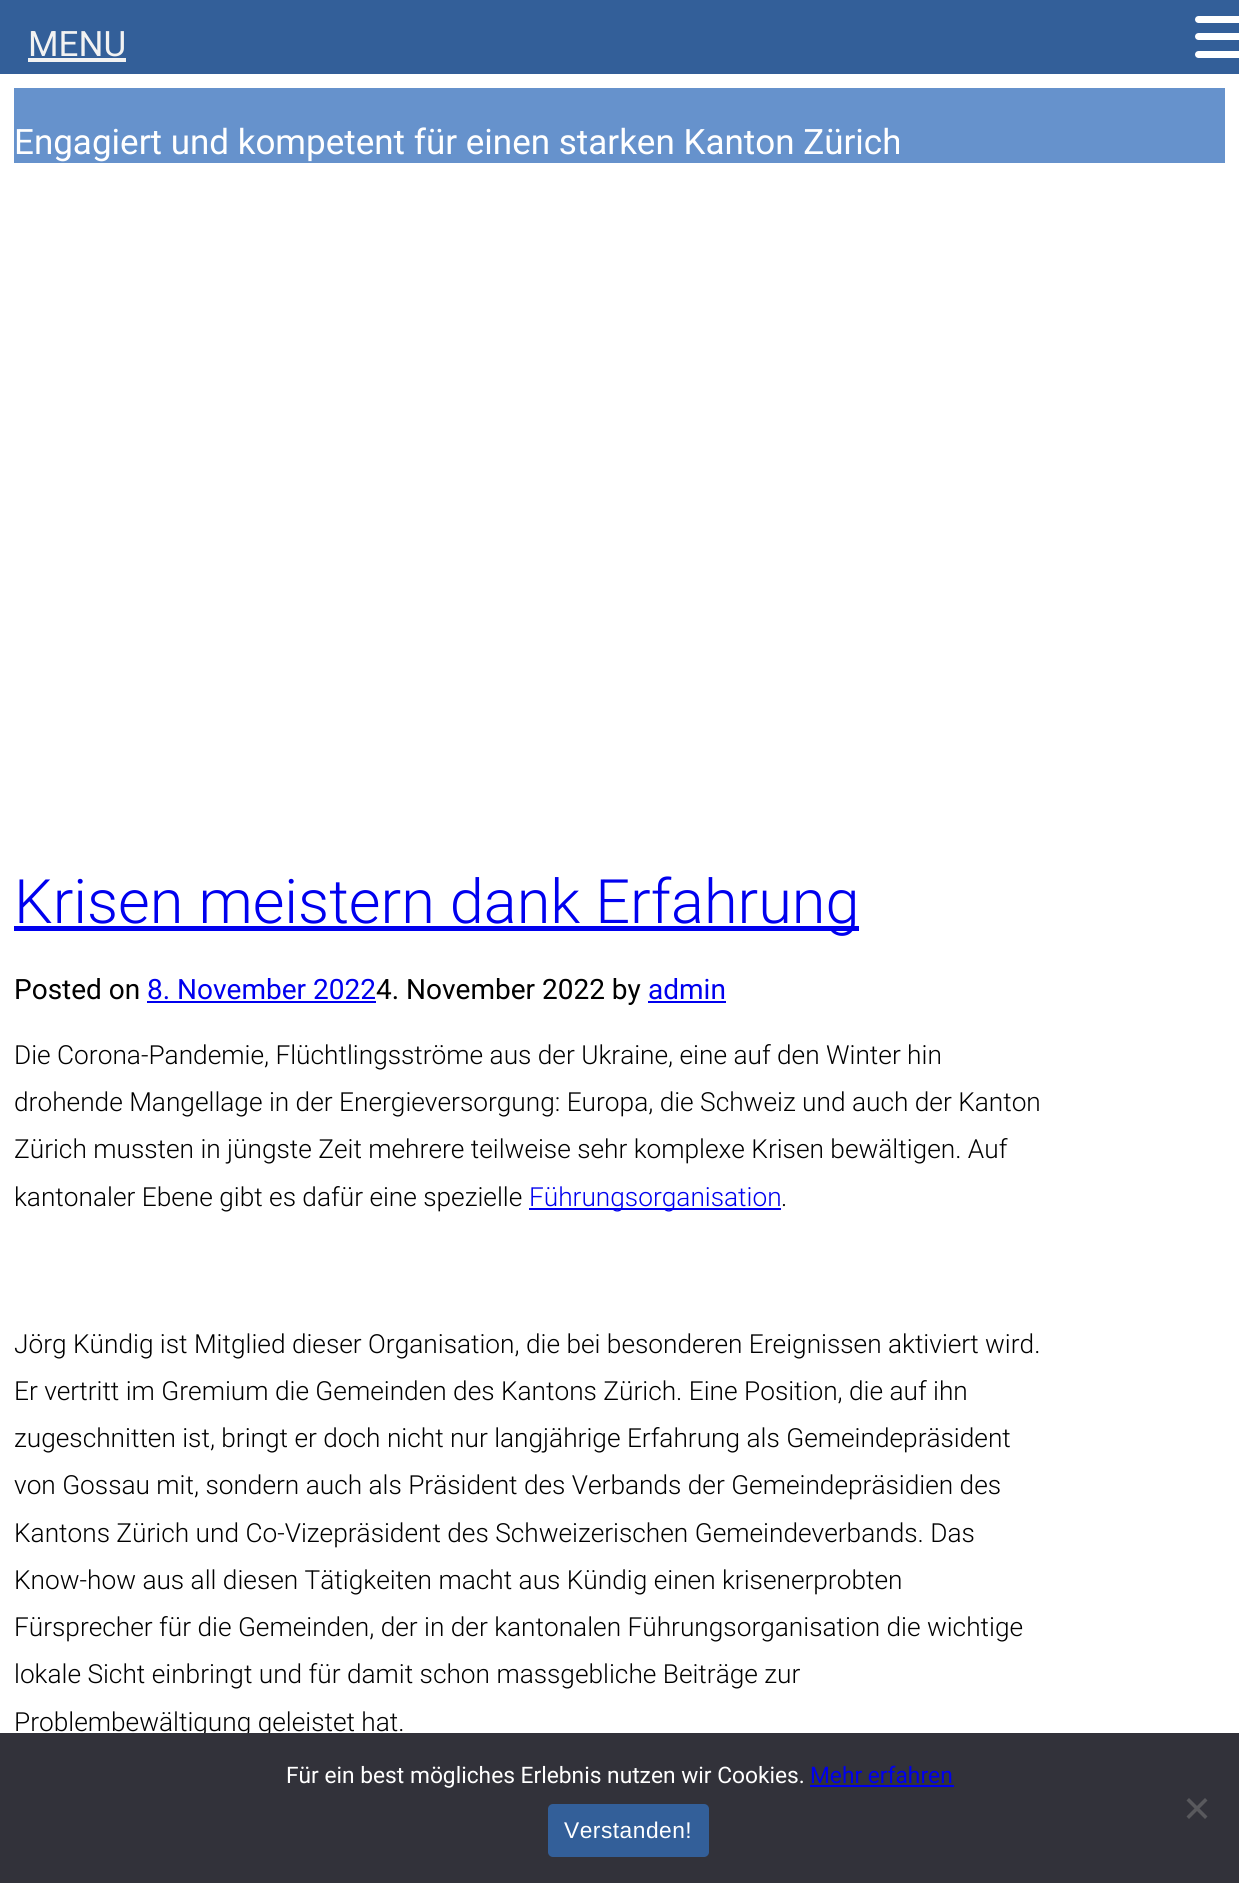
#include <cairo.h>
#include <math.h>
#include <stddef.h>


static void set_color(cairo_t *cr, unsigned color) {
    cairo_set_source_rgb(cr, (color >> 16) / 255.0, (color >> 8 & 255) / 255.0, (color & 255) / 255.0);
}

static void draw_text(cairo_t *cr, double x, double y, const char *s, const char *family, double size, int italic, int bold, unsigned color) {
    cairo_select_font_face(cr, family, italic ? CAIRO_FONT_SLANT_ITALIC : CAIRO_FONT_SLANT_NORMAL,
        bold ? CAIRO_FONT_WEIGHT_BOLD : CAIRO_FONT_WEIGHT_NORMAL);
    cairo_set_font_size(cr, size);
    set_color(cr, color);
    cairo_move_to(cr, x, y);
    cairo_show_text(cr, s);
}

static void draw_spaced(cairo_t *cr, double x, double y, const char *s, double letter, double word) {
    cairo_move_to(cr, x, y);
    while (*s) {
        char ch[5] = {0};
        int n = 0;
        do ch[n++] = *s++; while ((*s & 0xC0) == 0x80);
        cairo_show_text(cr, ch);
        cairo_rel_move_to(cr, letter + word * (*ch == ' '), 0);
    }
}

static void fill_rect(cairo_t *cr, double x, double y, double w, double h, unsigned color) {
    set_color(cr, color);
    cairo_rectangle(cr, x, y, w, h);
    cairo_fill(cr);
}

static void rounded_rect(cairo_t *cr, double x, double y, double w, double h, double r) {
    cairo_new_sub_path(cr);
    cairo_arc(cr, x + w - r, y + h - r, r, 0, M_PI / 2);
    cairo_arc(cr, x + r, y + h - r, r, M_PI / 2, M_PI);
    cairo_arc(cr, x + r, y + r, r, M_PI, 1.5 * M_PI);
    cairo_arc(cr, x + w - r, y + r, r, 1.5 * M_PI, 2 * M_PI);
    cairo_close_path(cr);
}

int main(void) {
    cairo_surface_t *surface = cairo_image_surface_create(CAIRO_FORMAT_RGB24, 1239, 1883);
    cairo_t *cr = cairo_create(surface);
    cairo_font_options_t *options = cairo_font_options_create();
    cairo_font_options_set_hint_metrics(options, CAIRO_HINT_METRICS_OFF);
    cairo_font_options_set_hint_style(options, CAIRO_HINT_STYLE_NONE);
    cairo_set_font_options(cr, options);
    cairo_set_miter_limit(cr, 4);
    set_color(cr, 0xFFFFFF);
    cairo_paint(cr);
    fill_rect(cr, 0, 0, 1239, 74, 0x335F99);
    draw_text(cr, 28, 56, "MENU", "Roboto", 35, 0, 0, 0xF2F2F2);
    fill_rect(cr, 28, 58, 98, 4, 0xF2F2F2);
    set_color(cr, 0xFFFFFF);
    rounded_rect(cr, 1195, 16, 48, 7, 3.5);
    cairo_fill(cr);
    rounded_rect(cr, 1195, 33, 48, 7, 3.5);
    cairo_fill(cr);
    rounded_rect(cr, 1195, 51, 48, 7, 3.5);
    cairo_fill(cr);
    fill_rect(cr, 14, 88, 1211, 75, 0x6692CC);
    draw_text(cr, 14, 154, "Engagiert und kompetent für einen starken Kanton Zürich", "Roboto", 35, 0, 0, 0xFFFFFF);
    fill_rect(cr, 14, 926, 845, 5, 0x0000EE);
    draw_text(cr, 14, 923, "Krisen meistern dank Erfahrung", "Roboto Light", 61.25, 0, 0, 0x0000EE);
    draw_text(cr, 14, 999, "Posted on", "Roboto", 28, 0, 0, 0x000000);
    draw_text(cr, 147, 999, "8. November 2022", "Roboto", 28, 0, 0, 0x0000EE);
    fill_rect(cr, 147, 1001, 229, 2, 0x0000EE);
    draw_text(cr, 376, 999, "4. November 2022 by", "Roboto", 28, 0, 0, 0x000000);
    draw_text(cr, 648, 999, "admin", "Roboto", 28, 0, 0, 0x0000EE);
    fill_rect(cr, 648, 1001, 78, 2, 0x0000EE);
    draw_text(cr, 14, 1064, "Die Corona-Pandemie, Flüchtlingsströme aus der Ukraine, eine auf den Winter hin", "Roboto Light", 26.25, 0, 0, 0x000000);
    draw_text(cr, 14, 1111, "drohende Mangellage in der Energieversorgung: Europa, die Schweiz und auch der Kanton", "Roboto Light", 26.25, 0, 0, 0x000000);
    draw_text(cr, 14, 1158, "Zürich mussten in jüngste Zeit mehrere teilweise sehr komplexe Krisen bewältigen. Auf", "Roboto Light", 26.25, 0, 0, 0x000000);
    draw_text(cr, 14, 1206, "kantonaler Ebene gibt es dafür eine spezielle", "Roboto Light", 26.25, 0, 0, 0x000000);
    fill_rect(cr, 529, 1208, 252, 2, 0x0000EE);
    draw_text(cr, 529, 1206, "Führungsorganisation", "Roboto Light", 26.25, 0, 0, 0x0000EE);
    draw_text(cr, 781, 1206, ".", "Roboto Light", 26.25, 0, 0, 0x000000);
    draw_text(cr, 14, 1353, "Jörg Kündig ist Mitglied dieser Organisation, die bei besonderen Ereignissen aktiviert wird.", "Roboto Light", 26.25, 0, 0, 0x000000);
    draw_text(cr, 14, 1400, "Er vertritt im Gremium die Gemeinden des Kantons Zürich. Eine Position, die auf ihn", "Roboto Light", 26.25, 0, 0, 0x000000);
    draw_text(cr, 14, 1447, "zugeschnitten ist, bringt er doch nicht nur langjährige Erfahrung als Gemeindepräsident", "Roboto Light", 26.25, 0, 0, 0x000000);
    draw_text(cr, 14, 1494, "von Gossau mit, sondern auch als Präsident des Verbands der Gemeindepräsidien des", "Roboto Light", 26.25, 0, 0, 0x000000);
    draw_text(cr, 14, 1542, "Kantons Zürich und Co-Vizepräsident des Schweizerischen Gemeindeverbands. Das", "Roboto Light", 26.25, 0, 0, 0x000000);
    draw_text(cr, 14, 1589, "Know-how aus all diesen Tätigkeiten macht aus Kündig einen krisenerprobten", "Roboto Light", 26.25, 0, 0, 0x000000);
    draw_text(cr, 14, 1636, "Fürsprecher für die Gemeinden, der in der kantonalen Führungsorganisation die wichtige", "Roboto Light", 26.25, 0, 0, 0x000000);
    draw_text(cr, 14, 1683, "lokale Sicht einbringt und für damit schon massgebliche Beiträge zur", "Roboto Light", 26.25, 0, 0, 0x000000);
    draw_text(cr, 14, 1731, "Problembewältigung geleistet hat.", "Roboto Light", 26.25, 0, 0, 0x000000);
    fill_rect(cr, 0, 1733, 1239, 150, 0x32323A);
    draw_text(cr, 286, 1783, "Für ein best mögliches Erlebnis nutzen wir Cookies.", "Roboto", 22.75, 0, 0, 0xFFFFFF);
    draw_text(cr, 810, 1783, "Mehr erfahren", "Roboto", 22.75, 0, 0, 0x0000EE);
    fill_rect(cr, 810, 1785, 144, 2, 0x0000EE);
    set_color(cr, 0x59595D);
    cairo_new_path(cr);
    cairo_move_to(cr, 1205, 1798);
    cairo_line_to(cr, 1207.5, 1800.5);
    cairo_line_to(cr, 1189, 1819);
    cairo_line_to(cr, 1186.5, 1816.5);
    cairo_close_path(cr);
    cairo_fill(cr);
    cairo_new_path(cr);
    cairo_move_to(cr, 1186.5, 1800.5);
    cairo_line_to(cr, 1189, 1798);
    cairo_line_to(cr, 1207.5, 1816.5);
    cairo_line_to(cr, 1205, 1819);
    cairo_close_path(cr);
    cairo_fill(cr);
    set_color(cr, 0x335F99);
    rounded_rect(cr, 548, 1804, 161, 53, 5);
    cairo_fill(cr);
    cairo_select_font_face(cr, "Liberation Sans", CAIRO_FONT_SLANT_NORMAL, CAIRO_FONT_WEIGHT_NORMAL);
    set_color(cr, 0xFFFFFF);
    draw_spaced(cr, 564, 1838, "Verstanden!", 0.5, 0);
    cairo_surface_write_to_png(surface, "output.png");
    cairo_font_options_destroy(options);
    cairo_destroy(cr);
    cairo_surface_destroy(surface);
    return 0;
}
